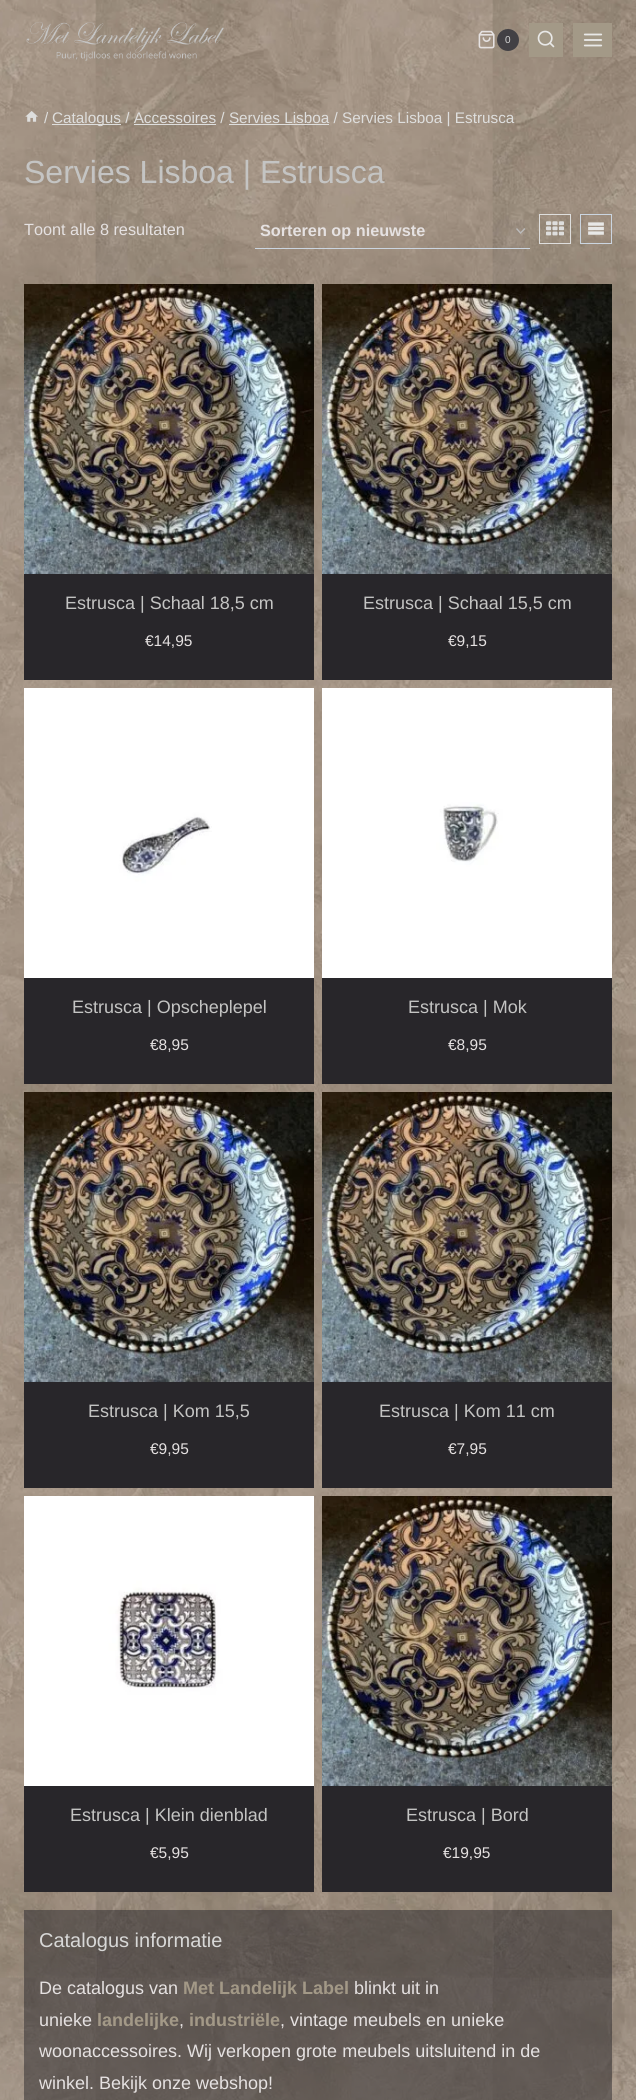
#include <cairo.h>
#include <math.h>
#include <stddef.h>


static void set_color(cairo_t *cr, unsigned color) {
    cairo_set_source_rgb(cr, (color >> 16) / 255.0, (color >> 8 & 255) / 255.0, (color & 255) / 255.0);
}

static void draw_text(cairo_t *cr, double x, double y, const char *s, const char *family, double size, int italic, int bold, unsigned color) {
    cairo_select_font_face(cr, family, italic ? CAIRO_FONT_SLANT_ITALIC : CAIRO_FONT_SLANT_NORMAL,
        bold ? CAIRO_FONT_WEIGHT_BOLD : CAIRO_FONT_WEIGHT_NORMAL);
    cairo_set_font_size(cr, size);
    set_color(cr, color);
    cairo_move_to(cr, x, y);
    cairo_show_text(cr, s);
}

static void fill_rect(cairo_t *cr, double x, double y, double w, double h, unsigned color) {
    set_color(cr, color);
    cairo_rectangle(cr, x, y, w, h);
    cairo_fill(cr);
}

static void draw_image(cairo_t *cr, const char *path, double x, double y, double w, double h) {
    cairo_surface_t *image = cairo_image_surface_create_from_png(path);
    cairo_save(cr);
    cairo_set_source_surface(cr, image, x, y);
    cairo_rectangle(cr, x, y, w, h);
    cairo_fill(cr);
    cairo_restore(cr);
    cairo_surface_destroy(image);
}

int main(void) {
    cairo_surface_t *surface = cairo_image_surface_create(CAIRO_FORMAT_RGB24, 636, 2100);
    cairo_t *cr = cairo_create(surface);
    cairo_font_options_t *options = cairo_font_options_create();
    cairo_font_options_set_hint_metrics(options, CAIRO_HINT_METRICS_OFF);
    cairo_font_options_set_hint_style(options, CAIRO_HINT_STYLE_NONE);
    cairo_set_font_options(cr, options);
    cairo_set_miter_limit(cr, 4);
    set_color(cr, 0xFFFFFF);
    cairo_paint(cr);
    draw_image(cr, "assets/img1.png", 0, 0, 636, 2100);
    draw_image(cr, "assets/img2.png", 26, 21, 198, 40);
    draw_image(cr, "assets/img3.png", 478, 30, 17, 19);
    set_color(cr, 0x424044);
    cairo_arc(cr, 508, 40, 11, 0, 2 * M_PI);
    cairo_fill(cr);
    draw_text(cr, 505, 43, "0", "Liberation Sans", 10, 0, 0, 0xD8D8D7);
    fill_rect(cr, 529, 23, 34, 34, 0xA39987);
    draw_image(cr, "assets/img4.png", 537, 30, 18, 18);
    fill_rect(cr, 573, 23, 39, 34, 0xA39987);
    draw_image(cr, "assets/img5.png", 583, 33, 20, 14);
    draw_image(cr, "assets/img6.png", 25, 111, 13, 11);
    draw_text(cr, 44, 123, "/", "Liberation Sans", 15.3, 0, 0, 0xDEDEDD);
    fill_rect(cr, 52, 124, 69, 1, 0xDEDEDD);
    draw_text(cr, 52, 123, "Catalogus / Accessoires / Servies Lisboa / Servies Lisboa | Estrusca", "Liberation Sans", 15.3, 0, 0, 0xDEDEDD);
    fill_rect(cr, 134, 124, 82, 1, 0xDEDEDD);
    fill_rect(cr, 229, 124, 100, 1, 0xDEDEDD);
    draw_text(cr, 24, 183, "Servies Lisboa | Estrusca", "Liberation Sans", 32, 0, 0, 0xC4C4C3);
    draw_text(cr, 24, 235, "Toont alle 8 resultaten", "Liberation Sans", 16.25, 0, 0, 0xE5E1E1);
    cairo_new_path(cr);
    cairo_move_to(cr, 516.5, 228.5);
    cairo_line_to(cr, 520.5, 233);
    cairo_line_to(cr, 525, 228.5);
    set_color(cr, 0xBBBBBB);
    cairo_set_line_width(cr, 1.4);
    cairo_stroke(cr);
    fill_rect(cr, 255, 248, 275, 1, 0xCBD5E0);
    draw_text(cr, 260, 236, "Sorteren op nieuwste", "Liberation Sans", 16.25, 0, 1, 0xE5E1E1);
    cairo_rectangle(cr, 539.5, 214.5, 31, 29);
    set_color(cr, 0xDEDEDD);
    cairo_set_line_width(cr, 1);
    cairo_stroke(cr);
    draw_image(cr, "assets/img7.png", 546, 221, 18, 15);
    cairo_rectangle(cr, 580.5, 214.5, 31, 29);
    set_color(cr, 0xCBD5E0);
    cairo_stroke(cr);
    draw_image(cr, "assets/img8.png", 588, 222, 16, 13);
    fill_rect(cr, 24, 574, 290, 106, 0x28262A);
    draw_image(cr, "assets/img9.png", 24, 284, 290, 290);
    draw_text(cr, 65, 609, "Estrusca | Schaal 18,5 cm", "Liberation Sans", 18, 0, 0, 0xC4C4C3);
    draw_text(cr, 145, 646, "€14,95", "Liberation Sans", 15.5, 0, 0, 0xE5E1E1);
    fill_rect(cr, 322, 574, 290, 106, 0x28262A);
    draw_image(cr, "assets/img10.png", 322, 284, 290, 290);
    draw_text(cr, 363, 609, "Estrusca | Schaal 15,5 cm", "Liberation Sans", 18, 0, 0, 0xC4C4C3);
    draw_text(cr, 448, 646, "€9,15", "Liberation Sans", 15.5, 0, 0, 0xE5E1E1);
    fill_rect(cr, 24, 978, 290, 106, 0x28262A);
    draw_image(cr, "assets/img11.png", 24, 688, 290, 290);
    draw_text(cr, 72, 1013, "Estrusca | Opscheplepel", "Liberation Sans", 18, 0, 0, 0xC4C4C3);
    draw_text(cr, 150, 1050, "€8,95", "Liberation Sans", 15.5, 0, 0, 0xE5E1E1);
    fill_rect(cr, 322, 978, 290, 106, 0x28262A);
    draw_image(cr, "assets/img12.png", 322, 688, 290, 290);
    draw_text(cr, 408, 1013, "Estrusca | Mok", "Liberation Sans", 18, 0, 0, 0xC4C4C3);
    draw_text(cr, 448, 1050, "€8,95", "Liberation Sans", 15.5, 0, 0, 0xE5E1E1);
    fill_rect(cr, 24, 1382, 290, 106, 0x28262A);
    draw_image(cr, "assets/img13.png", 24, 1092, 290, 290);
    draw_text(cr, 88, 1417, "Estrusca | Kom 15,5", "Liberation Sans", 18, 0, 0, 0xC4C4C3);
    draw_text(cr, 150, 1454, "€9,95", "Liberation Sans", 15.5, 0, 0, 0xE5E1E1);
    fill_rect(cr, 322, 1382, 290, 106, 0x28262A);
    draw_image(cr, "assets/img14.png", 322, 1092, 290, 290);
    draw_text(cr, 379, 1417, "Estrusca | Kom 11 cm", "Liberation Sans", 18, 0, 0, 0xC4C4C3);
    draw_text(cr, 448, 1454, "€7,95", "Liberation Sans", 15.5, 0, 0, 0xE5E1E1);
    fill_rect(cr, 24, 1786, 290, 106, 0x28262A);
    draw_image(cr, "assets/img15.png", 24, 1496, 290, 290);
    draw_text(cr, 70, 1821, "Estrusca | Klein dienblad", "Liberation Sans", 18, 0, 0, 0xC4C4C3);
    draw_text(cr, 150, 1858, "€5,95", "Liberation Sans", 15.5, 0, 0, 0xE5E1E1);
    fill_rect(cr, 322, 1786, 290, 106, 0x28262A);
    draw_image(cr, "assets/img14.png", 322, 1496, 290, 290);
    draw_text(cr, 406, 1821, "Estrusca | Bord", "Liberation Sans", 18, 0, 0, 0xC4C4C3);
    draw_text(cr, 443, 1858, "€19,95", "Liberation Sans", 15.5, 0, 0, 0xE5E1E1);
    cairo_set_source_rgba(cr, 0.157, 0.149, 0.165, 0.5);
    cairo_rectangle(cr, 24, 1910, 588, 190);
    cairo_fill(cr);
    draw_text(cr, 39, 1947, "Catalogus informatie", "Liberation Sans", 20, 0, 0, 0xD8D8D7);
    draw_text(cr, 39, 1994, "De catalogus van", "Liberation Sans", 18, 0, 0, 0xE5E1E1);
    draw_text(cr, 183, 1994, "Met Landelijk Label", "Liberation Sans", 18, 0, 1, 0xA39987);
    draw_text(cr, 354, 1994, "blinkt uit in", "Liberation Sans", 18, 0, 0, 0xE5E1E1);
    draw_text(cr, 39, 2026, "unieke", "Liberation Sans", 18, 0, 0, 0xE5E1E1);
    draw_text(cr, 97, 2026, "landelijke", "Liberation Sans", 18, 0, 1, 0xA39987);
    draw_text(cr, 179, 2026, ",", "Liberation Sans", 18, 0, 0, 0xE5E1E1);
    draw_text(cr, 189, 2026, "industriële", "Liberation Sans", 18, 0, 1, 0xA39987);
    draw_text(cr, 280, 2026, ", vintage meubels en unieke", "Liberation Sans", 18, 0, 0, 0xE5E1E1);
    draw_text(cr, 39, 2057, "woonaccessoires. Wij verkopen grote meubels uitsluitend in de", "Liberation Sans", 18, 0, 0, 0xE5E1E1);
    draw_text(cr, 39, 2089, "winkel. Bekijk onze webshop!", "Liberation Sans", 18, 0, 0, 0xE5E1E1);
    cairo_surface_write_to_png(surface, "output.png");
    cairo_font_options_destroy(options);
    cairo_destroy(cr);
    cairo_surface_destroy(surface);
    return 0;
}
